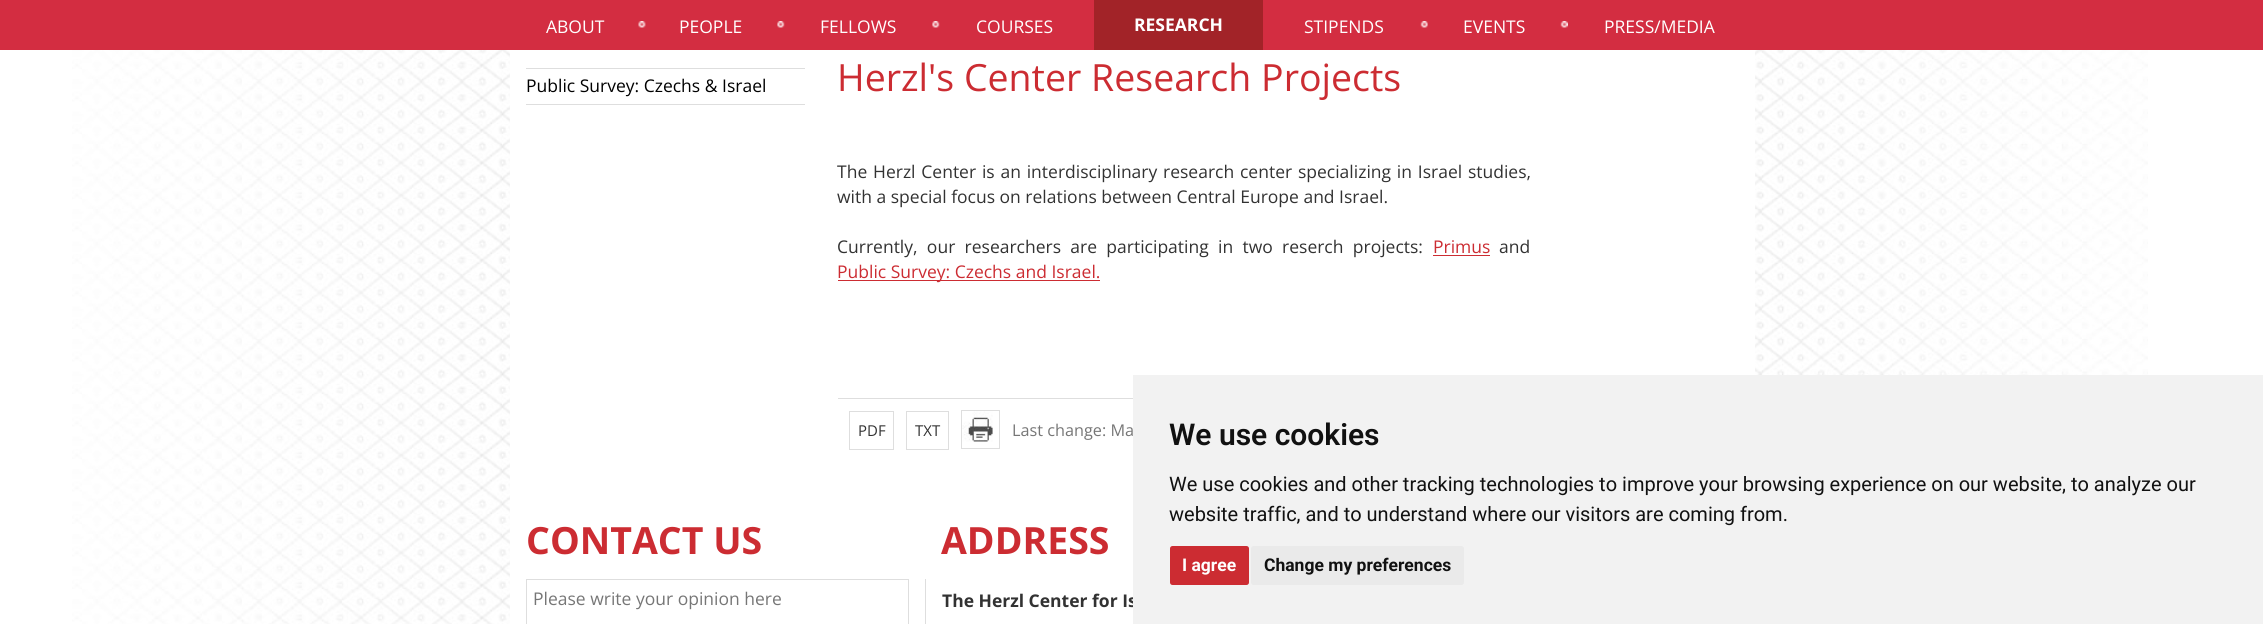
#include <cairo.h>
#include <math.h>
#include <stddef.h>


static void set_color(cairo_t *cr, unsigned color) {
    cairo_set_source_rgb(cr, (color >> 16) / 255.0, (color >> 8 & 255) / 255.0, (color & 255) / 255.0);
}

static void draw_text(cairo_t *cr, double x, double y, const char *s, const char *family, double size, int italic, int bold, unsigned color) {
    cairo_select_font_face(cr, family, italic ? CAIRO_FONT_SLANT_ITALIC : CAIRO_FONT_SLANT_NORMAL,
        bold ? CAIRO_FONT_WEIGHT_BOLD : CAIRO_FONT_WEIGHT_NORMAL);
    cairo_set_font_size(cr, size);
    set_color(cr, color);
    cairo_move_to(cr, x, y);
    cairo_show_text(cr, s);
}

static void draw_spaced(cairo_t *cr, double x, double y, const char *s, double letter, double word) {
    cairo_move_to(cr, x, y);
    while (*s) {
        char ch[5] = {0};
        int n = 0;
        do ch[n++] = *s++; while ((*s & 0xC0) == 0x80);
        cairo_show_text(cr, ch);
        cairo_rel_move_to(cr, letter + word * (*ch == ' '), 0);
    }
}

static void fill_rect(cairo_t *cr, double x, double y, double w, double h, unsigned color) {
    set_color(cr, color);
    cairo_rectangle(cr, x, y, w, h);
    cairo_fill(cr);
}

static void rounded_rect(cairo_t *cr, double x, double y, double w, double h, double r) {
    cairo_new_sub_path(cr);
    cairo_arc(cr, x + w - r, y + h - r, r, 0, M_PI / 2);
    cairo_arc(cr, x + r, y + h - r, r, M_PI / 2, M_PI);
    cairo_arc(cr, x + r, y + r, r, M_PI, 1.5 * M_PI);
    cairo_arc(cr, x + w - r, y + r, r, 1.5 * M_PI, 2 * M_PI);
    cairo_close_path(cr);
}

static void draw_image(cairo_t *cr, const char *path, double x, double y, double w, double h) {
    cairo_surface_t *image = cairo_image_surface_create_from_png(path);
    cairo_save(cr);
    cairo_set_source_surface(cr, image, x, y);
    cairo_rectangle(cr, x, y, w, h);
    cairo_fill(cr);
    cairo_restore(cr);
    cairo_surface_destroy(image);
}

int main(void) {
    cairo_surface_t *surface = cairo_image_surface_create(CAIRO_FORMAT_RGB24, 2263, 624);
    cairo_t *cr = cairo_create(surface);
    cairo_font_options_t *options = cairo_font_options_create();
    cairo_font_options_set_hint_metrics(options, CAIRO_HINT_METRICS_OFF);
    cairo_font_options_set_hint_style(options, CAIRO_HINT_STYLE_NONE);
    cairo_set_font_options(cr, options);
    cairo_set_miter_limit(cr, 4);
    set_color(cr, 0xFFFFFF);
    cairo_paint(cr);
    draw_image(cr, "assets/img1.png", 72, 50, 2076, 574);
    fill_rect(cr, 0, 0, 2263, 50, 0xD32D41);
    draw_text(cr, 546, 33, "ABOUT", "Open Sans", 17.5, 0, 0, 0xFFFFFF);
    draw_image(cr, "assets/img2.png", 638, 21, 8, 7);
    draw_text(cr, 679, 33, "PEOPLE", "Open Sans", 17.5, 0, 0, 0xFFFFFF);
    draw_image(cr, "assets/img3.png", 777, 21, 8, 7);
    draw_text(cr, 820, 33, "FELLOWS", "Open Sans", 17.5, 0, 0, 0xFFFFFF);
    draw_image(cr, "assets/img3.png", 932, 21, 8, 7);
    draw_text(cr, 976, 33, "COURSES", "Open Sans", 17.5, 0, 0, 0xFFFFFF);
    fill_rect(cr, 1094, 0, 169, 50, 0xA22328);
    draw_text(cr, 1134, 31, "RESEARCH", "Open Sans", 17.5, 0, 1, 0xFFFFFF);
    draw_text(cr, 1304, 33, "STIPENDS", "Open Sans", 17.5, 0, 0, 0xFFFFFF);
    draw_image(cr, "assets/img4.png", 1420, 21, 8, 7);
    draw_text(cr, 1463, 33, "EVENTS", "Open Sans", 17.5, 0, 0, 0xFFFFFF);
    draw_image(cr, "assets/img5.png", 1560, 21, 8, 7);
    draw_text(cr, 1604, 33, "PRESS/MEDIA", "Open Sans", 17.5, 0, 0, 0xFFFFFF);
    fill_rect(cr, 510, 50, 1245, 574, 0xFFFFFF);
    fill_rect(cr, 526, 68, 279, 1, 0xDEDEDE);
    fill_rect(cr, 526, 104, 279, 1, 0xDEDEDE);
    draw_text(cr, 526, 92, "Public Survey: Czechs & Israel", "Open Sans", 17.5, 0, 0, 0x000000);
    fill_rect(cr, 838, 398, 295, 1, 0xDEDEDE);
    draw_text(cr, 837, 91, "Herzl's Center Research Projects", "Open Sans", 37.5, 0, 0, 0xCC2C32);
    cairo_set_font_size(cr, 17.5);
    set_color(cr, 0x323232);
    draw_spaced(cr, 837, 178, "The Herzl Center is an interdisciplinary research center specializing in Israel studies,", 0, 1.25);
    draw_text(cr, 837, 203, "with a special focus on relations between Central Europe and Israel.", "Open Sans", 17.5, 0, 0, 0x323232);
    draw_spaced(cr, 837, 253, "Currently, our researchers are participating in two reserch projects:", 0, 4.75);
    draw_text(cr, 1433, 253, "Primus", "Open Sans", 17.5, 0, 0, 0xCC2C32);
    fill_rect(cr, 1433, 255, 57, 1, 0xCC2C32);
    draw_text(cr, 1499, 253, "and", "Open Sans", 17.5, 0, 0, 0x323232);
    fill_rect(cr, 838, 280, 262, 1, 0xCC2C32);
    draw_text(cr, 837, 278, "Public Survey: Czechs and Israel.", "Open Sans", 17.5, 0, 0, 0xCC2C32);
    cairo_rectangle(cr, 849.5, 411.5, 44, 38);
    set_color(cr, 0xDEDEDE);
    cairo_set_line_width(cr, 1);
    cairo_stroke(cr);
    draw_text(cr, 858, 436, "PDF", "Open Sans", 15, 0, 0, 0x323232);
    cairo_rectangle(cr, 906.5, 411.5, 42, 38);
    set_color(cr, 0xDEDEDE);
    cairo_stroke(cr);
    draw_text(cr, 915, 436, "TXT", "Open Sans", 15, 0, 0, 0x323232);
    cairo_rectangle(cr, 961.5, 410.5, 38, 38);
    set_color(cr, 0xDEDEDE);
    cairo_stroke(cr);
    draw_image(cr, "assets/img6.png", 962, 411, 31, 31);
    draw_text(cr, 1012, 436, "Last change: Ma", "Open Sans", 16.25, 0, 0, 0x767676);
    draw_text(cr, 526, 554, "CONTACT US", "Open Sans", 37.5, 0, 1, 0xCC2C32);
    cairo_rectangle(cr, 526.5, 579.5, 382, 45);
    set_color(cr, 0xDEDEDE);
    cairo_stroke(cr);
    draw_text(cr, 533, 605, "Please write your opinion here", "Open Sans", 17.5, 0, 0, 0x767676);
    draw_text(cr, 941, 554, "ADDRESS", "Open Sans", 37.5, 0, 1, 0xCC2C32);
    fill_rect(cr, 925, 579, 1, 45, 0xDEDEDE);
    draw_text(cr, 942, 607, "The Herzl Center for Is", "Open Sans", 17.5, 0, 1, 0x323232);
    fill_rect(cr, 1133, 375, 1130, 249, 0xF2F2F2);
    draw_text(cr, 1169, 445, "We use cookies", "Roboto SemiBold", 30, 0, 0, 0x111111);
    draw_text(cr, 1169, 491, "We use cookies and other tracking technologies to improve your browsing experience on our website, to analyze our", "Roboto", 20, 0, 0, 0x111111);
    draw_text(cr, 1169, 521, "website traffic, and to understand where our visitors are coming from.", "Roboto", 20, 0, 0, 0x111111);
    set_color(cr, 0xCC2C32);
    rounded_rect(cr, 1170, 546, 79, 39, 2.5);
    cairo_fill(cr);
    draw_text(cr, 1182, 571, "I agree", "Roboto", 17.5, 0, 1, 0xFFFFFF);
    set_color(cr, 0xEAEAEA);
    rounded_rect(cr, 1251, 546, 213, 39, 2.5);
    cairo_fill(cr);
    draw_text(cr, 1264, 571, "Change my preferences", "Roboto", 17.5, 0, 1, 0x111111);
    cairo_surface_write_to_png(surface, "output.png");
    cairo_font_options_destroy(options);
    cairo_destroy(cr);
    cairo_surface_destroy(surface);
    return 0;
}
